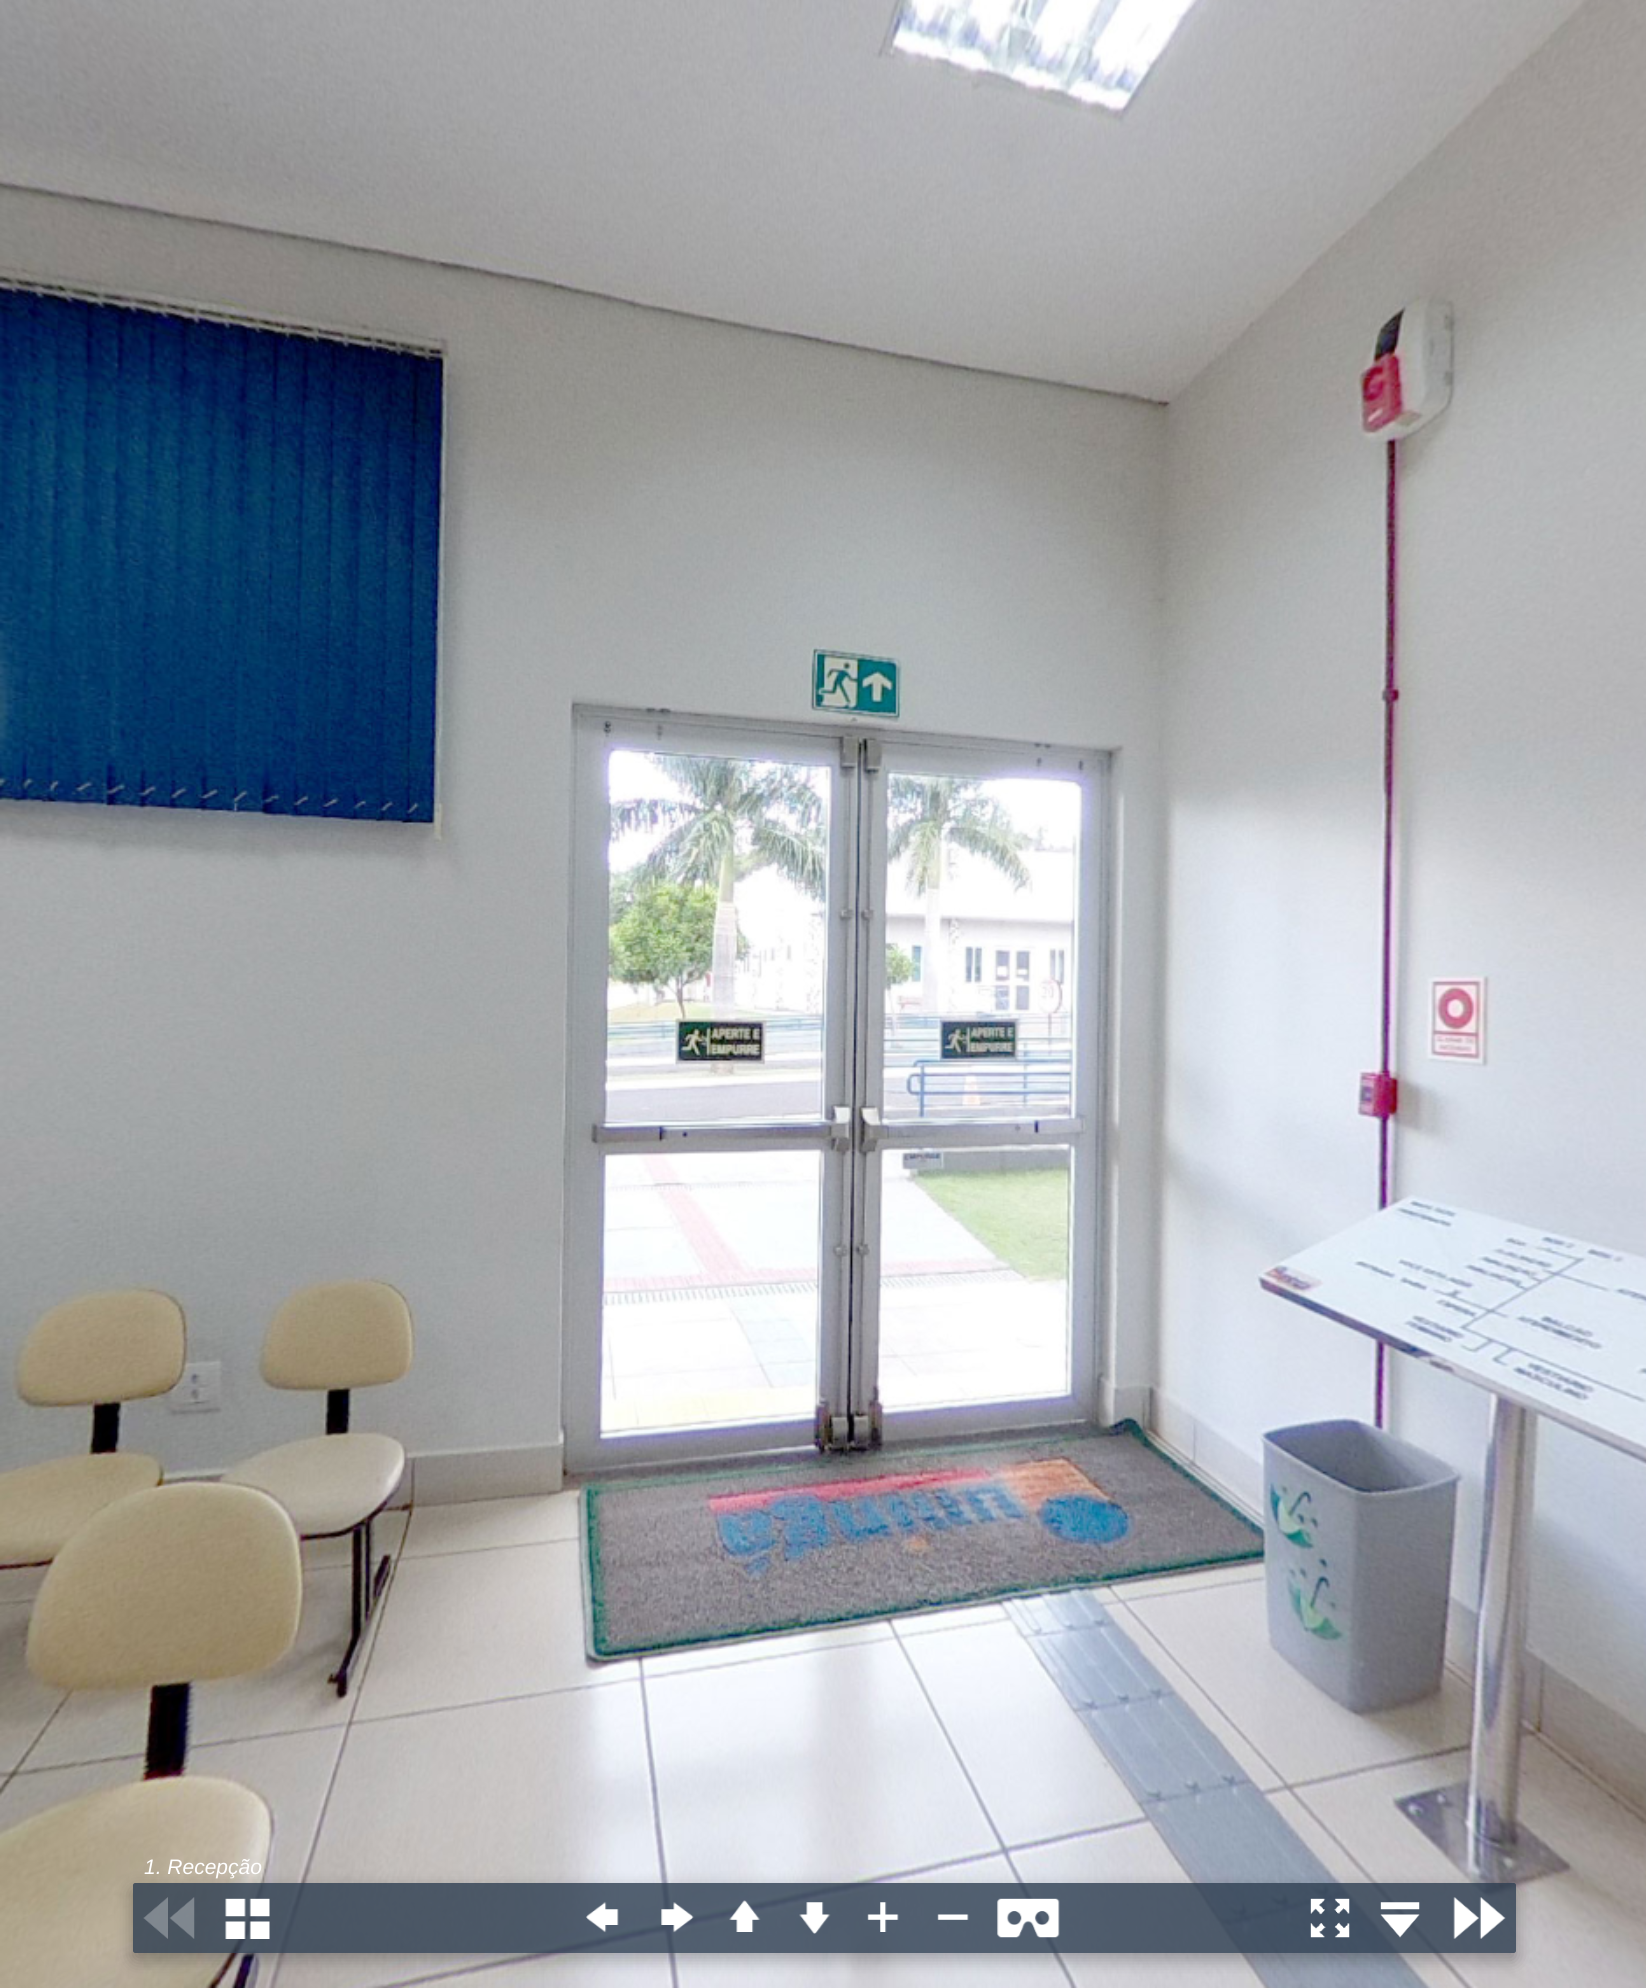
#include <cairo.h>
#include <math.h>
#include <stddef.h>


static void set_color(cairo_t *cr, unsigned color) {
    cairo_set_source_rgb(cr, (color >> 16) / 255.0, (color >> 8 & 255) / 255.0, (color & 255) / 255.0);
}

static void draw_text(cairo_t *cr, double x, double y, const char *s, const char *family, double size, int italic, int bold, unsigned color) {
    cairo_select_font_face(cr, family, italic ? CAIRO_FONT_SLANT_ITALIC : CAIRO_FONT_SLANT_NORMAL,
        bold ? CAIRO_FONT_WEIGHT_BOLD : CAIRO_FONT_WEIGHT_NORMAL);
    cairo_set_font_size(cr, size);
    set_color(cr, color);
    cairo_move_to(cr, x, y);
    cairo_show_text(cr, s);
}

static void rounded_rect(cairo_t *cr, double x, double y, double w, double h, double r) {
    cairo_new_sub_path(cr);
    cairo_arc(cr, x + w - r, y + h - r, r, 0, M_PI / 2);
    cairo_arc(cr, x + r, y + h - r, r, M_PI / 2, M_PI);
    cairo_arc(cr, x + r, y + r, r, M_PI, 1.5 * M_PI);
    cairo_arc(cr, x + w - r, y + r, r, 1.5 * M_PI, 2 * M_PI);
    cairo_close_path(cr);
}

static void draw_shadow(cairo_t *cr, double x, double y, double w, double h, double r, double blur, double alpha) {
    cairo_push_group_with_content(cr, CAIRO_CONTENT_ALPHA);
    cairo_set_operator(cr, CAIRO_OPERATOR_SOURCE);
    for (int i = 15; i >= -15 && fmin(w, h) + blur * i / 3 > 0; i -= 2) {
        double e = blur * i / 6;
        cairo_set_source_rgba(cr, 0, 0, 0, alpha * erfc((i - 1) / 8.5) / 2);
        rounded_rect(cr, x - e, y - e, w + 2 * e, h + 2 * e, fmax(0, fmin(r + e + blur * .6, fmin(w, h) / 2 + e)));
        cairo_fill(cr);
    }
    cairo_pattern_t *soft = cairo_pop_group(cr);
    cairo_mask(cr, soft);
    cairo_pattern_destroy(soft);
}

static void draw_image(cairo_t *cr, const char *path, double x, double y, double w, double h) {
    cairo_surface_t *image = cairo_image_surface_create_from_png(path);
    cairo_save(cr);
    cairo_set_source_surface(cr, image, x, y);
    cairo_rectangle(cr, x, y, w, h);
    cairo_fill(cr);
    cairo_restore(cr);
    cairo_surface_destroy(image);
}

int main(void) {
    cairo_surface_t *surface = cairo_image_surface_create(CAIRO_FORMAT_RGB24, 1646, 1988);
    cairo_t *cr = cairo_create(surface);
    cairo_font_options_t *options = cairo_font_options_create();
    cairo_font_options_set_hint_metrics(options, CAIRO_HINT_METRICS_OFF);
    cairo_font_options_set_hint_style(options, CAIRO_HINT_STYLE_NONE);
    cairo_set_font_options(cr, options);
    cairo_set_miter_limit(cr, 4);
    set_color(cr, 0xFFFFFF);
    cairo_paint(cr);
    draw_image(cr, "assets/img1.png", 0, 0, 1646, 1988);
    cairo_save(cr);
    cairo_rectangle(cr, 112, 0, 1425, 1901);
    cairo_clip(cr);
    cairo_set_fill_rule(cr, CAIRO_FILL_RULE_EVEN_ODD);
    cairo_new_path(cr);
    cairo_move_to(cr, 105, 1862);
    cairo_line_to(cr, 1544, 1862);
    cairo_line_to(cr, 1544, 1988);
    cairo_line_to(cr, 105, 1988);
    cairo_close_path(cr);
    cairo_move_to(cr, 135, 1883);
    cairo_line_to(cr, 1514, 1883);
    cairo_curve_to(cr, 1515, 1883, 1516, 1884, 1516, 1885);
    cairo_line_to(cr, 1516, 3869);
    cairo_curve_to(cr, 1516, 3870, 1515, 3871, 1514, 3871);
    cairo_line_to(cr, 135, 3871);
    cairo_curve_to(cr, 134, 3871, 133, 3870, 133, 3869);
    cairo_line_to(cr, 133, 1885);
    cairo_curve_to(cr, 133, 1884, 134, 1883, 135, 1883);
    cairo_close_path(cr);
    cairo_clip(cr);
    set_color(cr, 0x000000);
    draw_shadow(cr, 133, 1890, 1383, 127, 2, 9, 0.3);
    cairo_restore(cr);
    cairo_set_source_rgba(cr, 0.176, 0.243, 0.314, 0.8);
    cairo_new_path(cr);
    cairo_move_to(cr, 135, 1883);
    cairo_line_to(cr, 1514, 1883);
    cairo_curve_to(cr, 1515, 1883, 1516, 1884, 1516, 1885);
    cairo_line_to(cr, 1516, 1901);
    cairo_line_to(cr, 133, 1901);
    cairo_line_to(cr, 133, 1885);
    cairo_curve_to(cr, 133, 1884, 134, 1883, 135, 1883);
    cairo_close_path(cr);
    cairo_fill(cr);
    cairo_save(cr);
    cairo_rectangle(cr, 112, 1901, 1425, 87);
    cairo_clip(cr);
    cairo_set_fill_rule(cr, CAIRO_FILL_RULE_EVEN_ODD);
    cairo_new_path(cr);
    cairo_move_to(cr, 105, 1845);
    cairo_line_to(cr, 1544, 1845);
    cairo_line_to(cr, 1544, 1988);
    cairo_line_to(cr, 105, 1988);
    cairo_close_path(cr);
    cairo_move_to(cr, 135, 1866);
    cairo_line_to(cr, 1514, 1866);
    cairo_curve_to(cr, 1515, 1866, 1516, 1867, 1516, 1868);
    cairo_line_to(cr, 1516, 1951);
    cairo_curve_to(cr, 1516, 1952, 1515, 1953, 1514, 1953);
    cairo_line_to(cr, 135, 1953);
    cairo_curve_to(cr, 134, 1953, 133, 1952, 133, 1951);
    cairo_line_to(cr, 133, 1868);
    cairo_curve_to(cr, 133, 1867, 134, 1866, 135, 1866);
    cairo_close_path(cr);
    cairo_clip(cr);
    set_color(cr, 0x000000);
    draw_shadow(cr, 133, 1873, 1383, 87, 2, 9, 0.3);
    cairo_restore(cr);
    cairo_new_path(cr);
    cairo_move_to(cr, 133, 1901);
    cairo_line_to(cr, 1516, 1901);
    cairo_line_to(cr, 1516, 1951);
    cairo_curve_to(cr, 1516, 1952, 1515, 1953, 1514, 1953);
    cairo_line_to(cr, 135, 1953);
    cairo_curve_to(cr, 134, 1953, 133, 1952, 133, 1951);
    cairo_close_path(cr);
    cairo_fill(cr);
    draw_text(cr, 144, 1874, "1. Recepção", "Liberation Sans", 21, 1, 0, 0xFFFFFF);
    draw_image(cr, "assets/img2.png", 143, 1897, 52, 42);
    draw_image(cr, "assets/img3.png", 225, 1898, 45, 41);
    draw_image(cr, "assets/img4.png", 586, 1901, 33, 32);
    draw_image(cr, "assets/img5.png", 661, 1902, 33, 31);
    draw_image(cr, "assets/img6.png", 729, 1900, 32, 32);
    draw_image(cr, "assets/img7.png", 799, 1902, 32, 32);
    draw_image(cr, "assets/img8.png", 867, 1902, 32, 30);
    draw_image(cr, "assets/img9.png", 937, 1914, 32, 6);
    draw_image(cr, "assets/img10.png", 997, 1898, 63, 40);
    draw_image(cr, "assets/img11.png", 1310, 1898, 40, 40);
    draw_image(cr, "assets/img12.png", 1380, 1902, 40, 36);
    draw_image(cr, "assets/img13.png", 1453, 1897, 53, 42);
    cairo_surface_write_to_png(surface, "output.png");
    cairo_font_options_destroy(options);
    cairo_destroy(cr);
    cairo_surface_destroy(surface);
    return 0;
}
